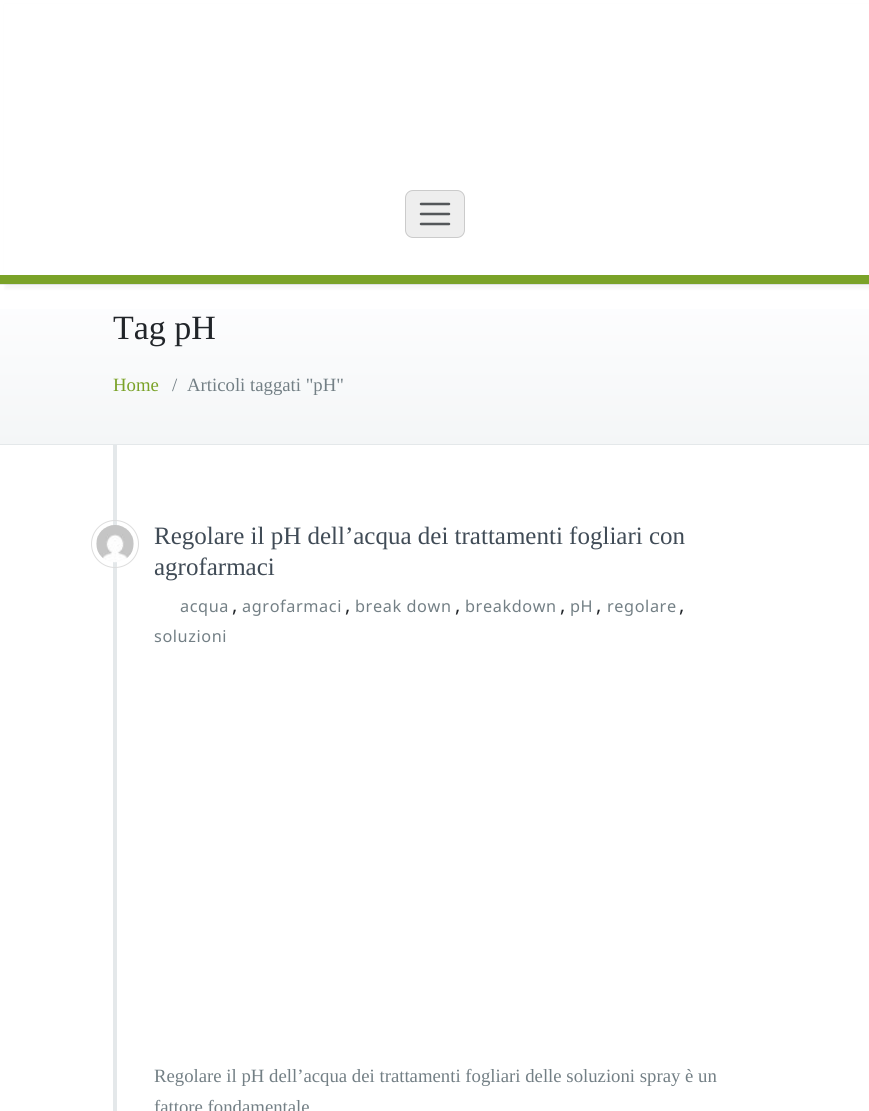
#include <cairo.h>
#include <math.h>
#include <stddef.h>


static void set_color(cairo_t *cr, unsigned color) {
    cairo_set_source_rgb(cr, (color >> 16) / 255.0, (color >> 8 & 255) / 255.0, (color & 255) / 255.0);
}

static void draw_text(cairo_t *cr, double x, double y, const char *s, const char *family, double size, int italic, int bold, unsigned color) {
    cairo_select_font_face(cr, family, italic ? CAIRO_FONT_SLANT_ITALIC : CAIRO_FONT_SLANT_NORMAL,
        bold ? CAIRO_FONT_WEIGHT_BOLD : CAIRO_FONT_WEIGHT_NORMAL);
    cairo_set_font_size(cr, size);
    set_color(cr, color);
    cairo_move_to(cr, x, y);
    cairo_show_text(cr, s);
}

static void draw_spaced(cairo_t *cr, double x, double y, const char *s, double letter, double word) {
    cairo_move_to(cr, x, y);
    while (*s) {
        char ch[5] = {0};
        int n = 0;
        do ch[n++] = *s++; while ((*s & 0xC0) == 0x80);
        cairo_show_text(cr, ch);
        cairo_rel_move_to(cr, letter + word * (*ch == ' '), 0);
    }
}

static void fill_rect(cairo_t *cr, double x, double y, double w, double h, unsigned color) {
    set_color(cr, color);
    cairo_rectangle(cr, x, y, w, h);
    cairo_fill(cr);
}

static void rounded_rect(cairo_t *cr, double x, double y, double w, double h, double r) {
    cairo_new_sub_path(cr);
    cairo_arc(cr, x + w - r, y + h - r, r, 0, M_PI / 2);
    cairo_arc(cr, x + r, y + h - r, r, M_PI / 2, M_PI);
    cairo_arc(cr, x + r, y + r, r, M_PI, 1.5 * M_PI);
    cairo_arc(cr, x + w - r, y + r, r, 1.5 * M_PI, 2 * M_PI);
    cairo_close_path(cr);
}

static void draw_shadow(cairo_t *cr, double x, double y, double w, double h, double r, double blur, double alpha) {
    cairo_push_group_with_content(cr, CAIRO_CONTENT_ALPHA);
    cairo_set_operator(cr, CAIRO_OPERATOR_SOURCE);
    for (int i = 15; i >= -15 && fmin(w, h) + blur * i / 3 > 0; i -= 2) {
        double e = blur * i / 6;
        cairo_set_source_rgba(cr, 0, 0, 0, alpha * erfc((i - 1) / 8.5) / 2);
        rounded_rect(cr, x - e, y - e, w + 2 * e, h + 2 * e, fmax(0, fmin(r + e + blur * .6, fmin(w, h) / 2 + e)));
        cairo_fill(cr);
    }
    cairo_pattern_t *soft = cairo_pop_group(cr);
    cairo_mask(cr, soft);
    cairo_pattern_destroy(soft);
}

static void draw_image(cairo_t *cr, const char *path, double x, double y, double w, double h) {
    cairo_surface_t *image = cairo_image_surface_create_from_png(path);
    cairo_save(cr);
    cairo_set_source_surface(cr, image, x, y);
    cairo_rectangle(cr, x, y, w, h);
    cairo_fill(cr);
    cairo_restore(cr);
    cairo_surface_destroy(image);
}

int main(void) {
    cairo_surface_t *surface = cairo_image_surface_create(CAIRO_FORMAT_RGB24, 869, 1111);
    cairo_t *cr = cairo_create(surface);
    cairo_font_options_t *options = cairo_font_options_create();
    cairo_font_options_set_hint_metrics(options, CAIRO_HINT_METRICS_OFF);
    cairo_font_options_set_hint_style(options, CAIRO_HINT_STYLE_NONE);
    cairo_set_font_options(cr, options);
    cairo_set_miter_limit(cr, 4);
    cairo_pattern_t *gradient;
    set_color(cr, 0xFFFFFF);
    cairo_paint(cr);
    fill_rect(cr, 0, 284, 869, 1, 0xE4E8EA);
    set_color(cr, 0x000000);
    draw_shadow(cr, 5, 5, 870, 284, 0, 2, 0.04);
    fill_rect(cr, 4, 4, 865, 271, 0xFFFFFF);
    fill_rect(cr, 0, 275, 869, 9, 0x7AA228);
    set_color(cr, 0xEEEEEE);
    rounded_rect(cr, 405, 190, 60, 48, 8);
    cairo_fill(cr);
    rounded_rect(cr, 405.5, 190.5, 59, 47, 7.5);
    cairo_set_source_rgba(cr, 0, 0, 0, 0.15);
    cairo_set_line_width(cr, 1);
    cairo_stroke(cr);
    cairo_new_path(cr);
    cairo_move_to(cr, 421, 204);
    cairo_line_to(cr, 449, 204);
    cairo_move_to(cr, 421, 214);
    cairo_line_to(cr, 449, 214);
    cairo_move_to(cr, 421, 224);
    cairo_line_to(cr, 449, 224);
    set_color(cr, 0x54575A);
    cairo_set_line_width(cr, 2.5);
    cairo_set_line_cap(cr, CAIRO_LINE_CAP_ROUND);
    cairo_stroke(cr);
    gradient = cairo_pattern_create_linear(435, 285, 435, 444);
    cairo_pattern_add_color_stop_rgba(gradient, 0, 0.996, 0.996, 1, 1);
    cairo_pattern_add_color_stop_rgba(gradient, 1, 0.957, 0.965, 0.969, 1);
    cairo_set_source(cr, gradient);
    cairo_pattern_destroy(gradient);
    cairo_rectangle(cr, 0, 309, 869, 135);
    cairo_fill(cr);
    fill_rect(cr, 0, 444, 869, 1, 0xE4E8EA);
    draw_text(cr, 113, 339, "Tag pH", "Liberation Serif", 34, 0, 0, 0x212529);
    draw_text(cr, 113, 391, "Home", "Liberation Serif", 18.75, 0, 0, 0x7AA228);
    draw_text(cr, 172, 391, "/", "Liberation Serif", 18.75, 0, 0, 0x737F85);
    draw_text(cr, 187, 391, "Articoli taggati \"pH\"", "Liberation Serif", 18.75, 0, 0, 0x737F85);
    fill_rect(cr, 113, 445, 4, 666, 0xE4E8EA);
    cairo_new_path(cr);
    cairo_arc(cr, 115, 544, 23.5, 0, 2 * M_PI);
    set_color(cr, 0xDDDDDD);
    cairo_set_line_width(cr, 1);
    cairo_set_line_cap(cr, CAIRO_LINE_CAP_BUTT);
    cairo_stroke(cr);
    draw_image(cr, "assets/img1.png", 96, 525, 38, 38);
    draw_text(cr, 154, 544, "Regolare il pH dell’acqua dei trattamenti fogliari con", "Liberation Serif", 25, 0, 0, 0x404B56);
    draw_text(cr, 154, 575, "agrofarmaci", "Liberation Serif", 25, 0, 0, 0x404B56);
    cairo_select_font_face(cr, "Noto Sans", CAIRO_FONT_SLANT_NORMAL, CAIRO_FONT_WEIGHT_NORMAL);
    cairo_set_font_size(cr, 16.25);
    set_color(cr, 0x737F85);
    draw_spaced(cr, 180, 612, "acqua", 0.6, 0);
    draw_text(cr, 232, 612, ",", "Noto Sans", 20, 0, 0, 0x212529);
    cairo_set_font_size(cr, 16.25);
    set_color(cr, 0x737F85);
    draw_spaced(cr, 242, 612, "agrofarmaci", 0.6, 0);
    draw_text(cr, 345, 612, ",", "Noto Sans", 20, 0, 0, 0x212529);
    cairo_set_font_size(cr, 16.25);
    set_color(cr, 0x737F85);
    draw_spaced(cr, 355, 612, "break down", 0.6, 0);
    draw_text(cr, 455, 612, ",", "Noto Sans", 20, 0, 0, 0x212529);
    cairo_set_font_size(cr, 16.25);
    set_color(cr, 0x737F85);
    draw_spaced(cr, 465, 612, "breakdown", 0.6, 0);
    draw_text(cr, 560, 612, ",", "Noto Sans", 20, 0, 0, 0x212529);
    cairo_set_font_size(cr, 16.25);
    set_color(cr, 0x737F85);
    draw_spaced(cr, 570, 612, "pH", 0.6, 0);
    draw_text(cr, 596, 612, ",", "Noto Sans", 20, 0, 0, 0x212529);
    cairo_set_font_size(cr, 16.25);
    set_color(cr, 0x737F85);
    draw_spaced(cr, 607, 612, "regolare", 0.6, 0);
    draw_text(cr, 679, 612, ",", "Noto Sans", 20, 0, 0, 0x212529);
    cairo_set_font_size(cr, 16.25);
    set_color(cr, 0x737F85);
    draw_spaced(cr, 154, 642, "soluzioni", 0.6, 0);
    draw_text(cr, 154, 1082, "Regolare il pH dell’acqua dei trattamenti fogliari delle soluzioni spray è un", "Liberation Serif", 18.75, 0, 0, 0x737F85);
    draw_text(cr, 154, 1113, "fattore fondamentale", "Liberation Serif", 18.75, 0, 0, 0x737F85);
    cairo_surface_write_to_png(surface, "output.png");
    cairo_font_options_destroy(options);
    cairo_destroy(cr);
    cairo_surface_destroy(surface);
    return 0;
}
